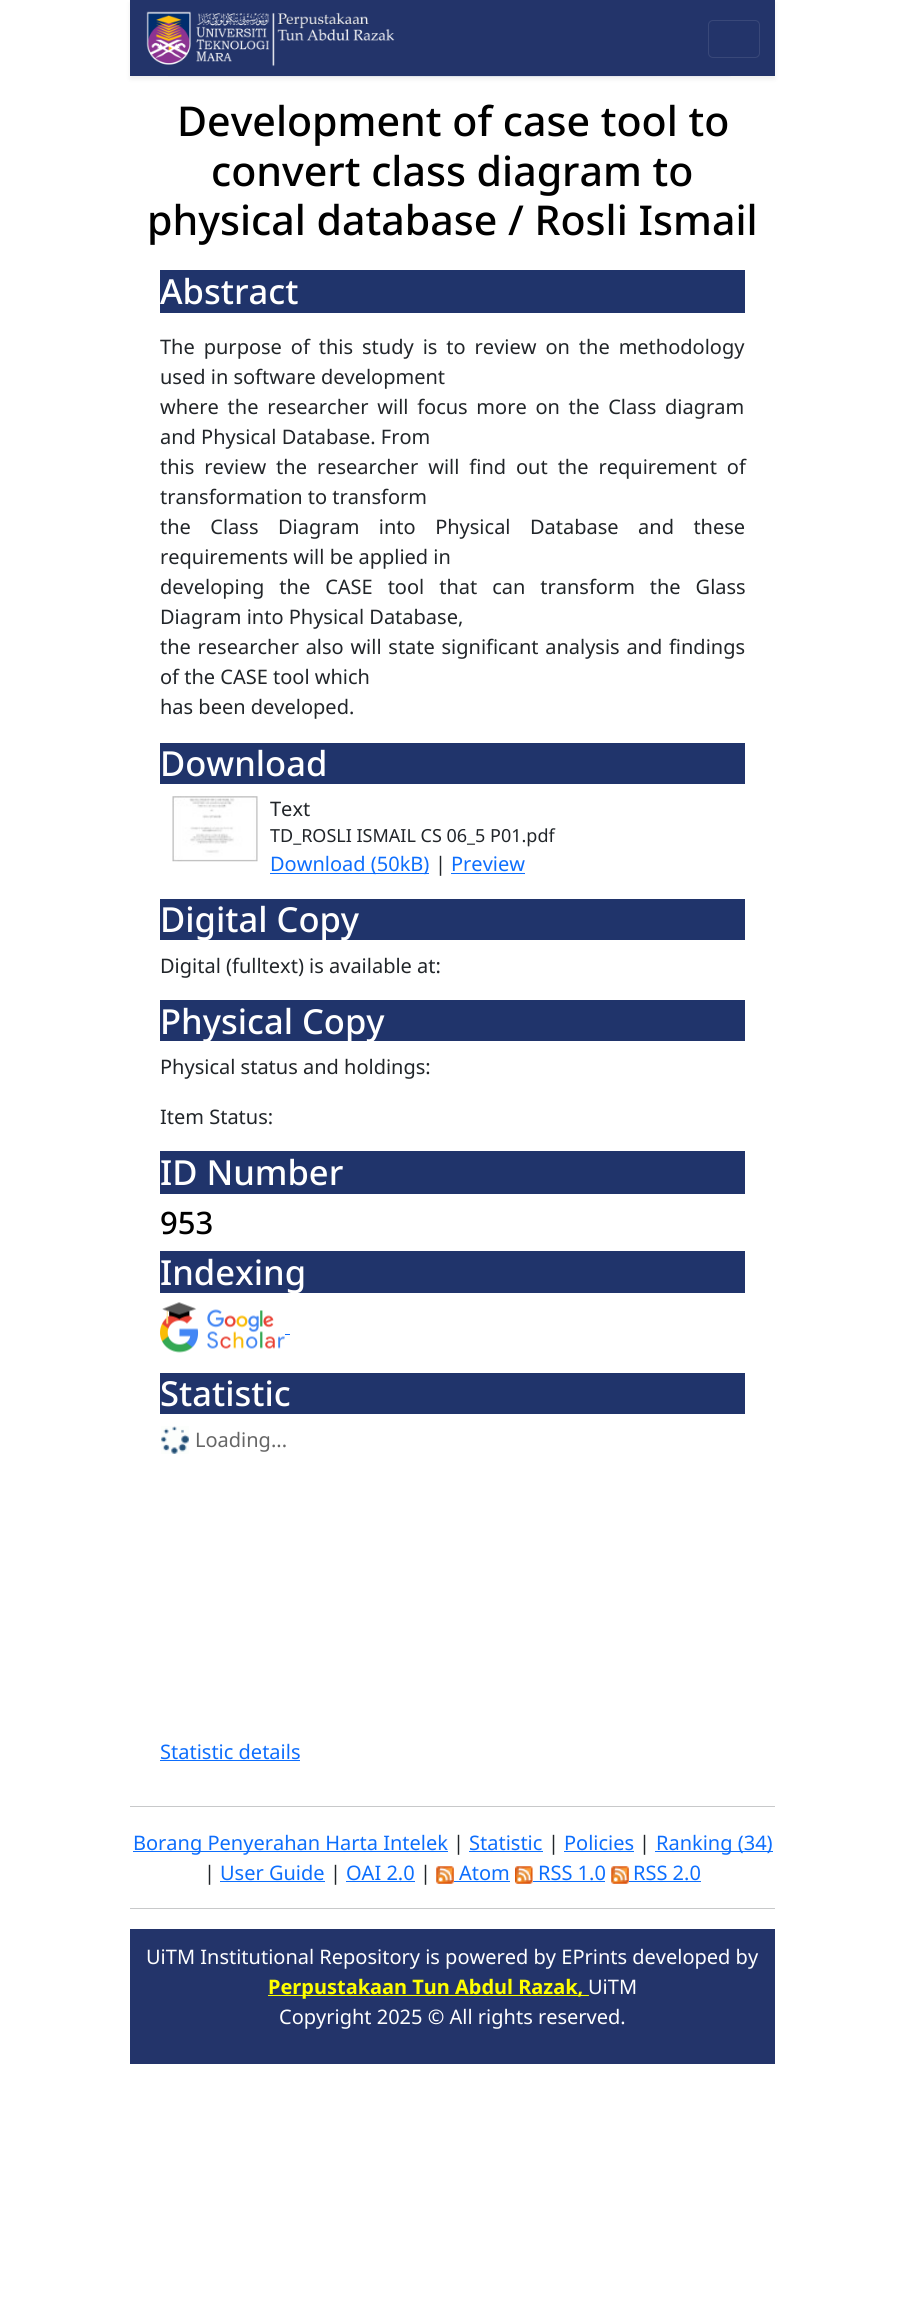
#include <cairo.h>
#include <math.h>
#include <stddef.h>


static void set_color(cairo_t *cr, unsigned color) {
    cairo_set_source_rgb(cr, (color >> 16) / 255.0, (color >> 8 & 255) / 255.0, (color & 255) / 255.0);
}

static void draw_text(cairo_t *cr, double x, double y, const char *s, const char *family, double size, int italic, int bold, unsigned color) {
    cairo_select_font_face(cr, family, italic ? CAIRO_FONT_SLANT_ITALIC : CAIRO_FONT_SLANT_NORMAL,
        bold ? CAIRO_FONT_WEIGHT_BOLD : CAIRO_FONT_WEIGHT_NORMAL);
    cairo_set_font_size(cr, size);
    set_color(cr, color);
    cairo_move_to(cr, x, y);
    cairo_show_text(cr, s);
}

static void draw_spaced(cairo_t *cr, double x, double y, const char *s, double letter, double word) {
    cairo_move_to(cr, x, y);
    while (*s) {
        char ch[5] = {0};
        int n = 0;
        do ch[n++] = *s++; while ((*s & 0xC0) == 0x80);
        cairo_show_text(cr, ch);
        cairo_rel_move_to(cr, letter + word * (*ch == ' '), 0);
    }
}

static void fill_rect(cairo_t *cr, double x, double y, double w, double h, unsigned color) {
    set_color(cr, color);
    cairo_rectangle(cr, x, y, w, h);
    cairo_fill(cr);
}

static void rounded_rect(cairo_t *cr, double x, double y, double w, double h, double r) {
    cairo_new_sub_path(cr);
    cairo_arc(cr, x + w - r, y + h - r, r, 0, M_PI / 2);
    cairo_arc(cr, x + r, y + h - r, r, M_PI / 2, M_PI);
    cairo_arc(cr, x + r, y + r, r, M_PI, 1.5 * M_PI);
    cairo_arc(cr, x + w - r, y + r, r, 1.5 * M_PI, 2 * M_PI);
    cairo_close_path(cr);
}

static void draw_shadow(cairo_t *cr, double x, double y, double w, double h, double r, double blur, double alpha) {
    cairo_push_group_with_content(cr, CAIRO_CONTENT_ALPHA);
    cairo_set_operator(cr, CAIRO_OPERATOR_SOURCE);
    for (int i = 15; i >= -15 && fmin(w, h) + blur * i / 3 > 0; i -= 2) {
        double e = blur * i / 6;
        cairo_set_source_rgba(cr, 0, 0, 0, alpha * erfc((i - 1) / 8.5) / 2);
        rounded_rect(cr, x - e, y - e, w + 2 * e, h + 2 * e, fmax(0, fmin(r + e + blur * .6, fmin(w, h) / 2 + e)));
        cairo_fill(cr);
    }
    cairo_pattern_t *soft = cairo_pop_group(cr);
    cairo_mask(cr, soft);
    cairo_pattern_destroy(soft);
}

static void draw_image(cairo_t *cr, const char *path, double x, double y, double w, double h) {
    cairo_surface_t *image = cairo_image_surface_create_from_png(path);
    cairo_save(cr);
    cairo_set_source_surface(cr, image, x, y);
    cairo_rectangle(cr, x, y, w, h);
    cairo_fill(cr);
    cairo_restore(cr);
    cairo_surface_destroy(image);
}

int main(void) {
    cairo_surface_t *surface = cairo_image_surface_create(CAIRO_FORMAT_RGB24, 905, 2297);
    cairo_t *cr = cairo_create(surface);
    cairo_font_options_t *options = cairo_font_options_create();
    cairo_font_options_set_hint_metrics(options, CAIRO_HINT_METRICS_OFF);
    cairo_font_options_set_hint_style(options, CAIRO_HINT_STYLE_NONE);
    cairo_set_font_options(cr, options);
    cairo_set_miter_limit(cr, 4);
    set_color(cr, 0xFFFFFF);
    cairo_paint(cr);
    draw_image(cr, "assets/img1.png", 168, 76, 563, 1);
    set_color(cr, 0x000000);
    draw_shadow(cr, 130, 3, 645, 76, 0, 2.5, 0.07);
    fill_rect(cr, 130, 0, 645, 76, 0x23346A);
    draw_image(cr, "assets/img2.png", 146, 11, 249, 56);
    rounded_rect(cr, 708.5, 20.5, 51, 37, 4.5);
    set_color(cr, 0x394879);
    cairo_set_line_width(cr, 1);
    cairo_stroke(cr);
    draw_text(cr, 177, 136, "Development of case tool to", "Noto Sans Medium", 41.1, 0, 0, 0x000000);
    draw_text(cr, 211, 186, "convert class diagram to", "Noto Sans Medium", 41.1, 0, 0, 0x000000);
    draw_text(cr, 147, 235, "physical database / Rosli Ismail", "Noto Sans Medium", 41.1, 0, 0, 0x000000);
    fill_rect(cr, 160, 270, 585, 43, 0x20346B);
    draw_text(cr, 160, 304, "Abstract", "Noto Sans Medium", 34.5, 0, 0, 0xFFFFFF);
    cairo_select_font_face(cr, "Noto Sans", CAIRO_FONT_SLANT_NORMAL, CAIRO_FONT_WEIGHT_NORMAL);
    cairo_set_font_size(cr, 20);
    set_color(cr, 0x212529);
    draw_spaced(cr, 160, 354, "The purpose of this study is to review on the methodology", 0, 3.75);
    draw_text(cr, 160, 384, "used in software development", "Noto Sans", 20, 0, 0, 0x212529);
    draw_spaced(cr, 160, 414, "where the researcher will focus more on the Class diagram", 0, 3.5);
    draw_text(cr, 160, 444, "and Physical Database. From", "Noto Sans", 20, 0, 0, 0x212529);
    draw_spaced(cr, 160, 474, "this review the researcher will find out the requirement of", 0, 4.75);
    draw_text(cr, 160, 504, "transformation to transform", "Noto Sans", 20, 0, 0, 0x212529);
    draw_spaced(cr, 160, 534, "the Class Diagram into Physical Database and these", 0, 14.25);
    draw_text(cr, 160, 564, "requirements will be applied in", "Noto Sans", 20, 0, 0, 0x212529);
    draw_spaced(cr, 160, 594, "developing the CASE tool that can transform the Glass", 0, 9.75);
    draw_text(cr, 160, 624, "Diagram into Physical Database,", "Noto Sans", 20, 0, 0, 0x212529);
    draw_spaced(cr, 160, 654, "the researcher also will state significant analysis and findings", 0, 1.5);
    draw_text(cr, 160, 684, "of the CASE tool which", "Noto Sans", 20, 0, 0, 0x212529);
    draw_text(cr, 160, 714, "has been developed.", "Noto Sans", 20, 0, 0, 0x212529);
    fill_rect(cr, 160, 743, 585, 41, 0x20346B);
    draw_text(cr, 160, 776, "Download", "Noto Sans Medium", 34.5, 0, 0, 0xFFFFFF);
    draw_image(cr, "assets/img3.png", 172, 796, 86, 66);
    draw_text(cr, 270, 816, "Text", "Noto Sans", 20, 0, 0, 0x212529);
    draw_text(cr, 270, 842, "TD_ROSLI ISMAIL CS 06_5 P01.pdf", "Noto Sans", 18, 0, 0, 0x212529);
    fill_rect(cr, 270, 873, 159, 1, 0x0D6EFD);
    draw_text(cr, 270, 871, "Download (50kB)", "Noto Sans", 20, 0, 0, 0x0D6EFD);
    draw_text(cr, 435, 871, "|", "Noto Sans", 20, 0, 0, 0x212529);
    draw_text(cr, 451, 871, "Preview", "Noto Sans", 20, 0, 0, 0x0D6EFD);
    fill_rect(cr, 451, 873, 74, 1, 0x0D6EFD);
    fill_rect(cr, 160, 899, 585, 41, 0x20346B);
    draw_text(cr, 160, 932, "Digital Copy", "Noto Sans Medium", 34.5, 0, 0, 0xFFFFFF);
    draw_text(cr, 160, 973, "Digital (fulltext) is available at:", "Noto Sans", 20, 0, 0, 0x212529);
    fill_rect(cr, 160, 1000, 585, 41, 0x20346B);
    draw_text(cr, 160, 1034, "Physical Copy", "Noto Sans Medium", 34.5, 0, 0, 0xFFFFFF);
    draw_text(cr, 160, 1074, "Physical status and holdings:", "Noto Sans", 20, 0, 0, 0x212529);
    draw_text(cr, 160, 1124, "Item Status:", "Noto Sans", 20, 0, 0, 0x212529);
    fill_rect(cr, 160, 1151, 585, 43, 0x20346B);
    draw_text(cr, 160, 1185, "ID Number", "Noto Sans Medium", 34.5, 0, 0, 0xFFFFFF);
    draw_text(cr, 160, 1234, "953", "Noto Sans Medium", 31, 0, 0, 0x000000);
    fill_rect(cr, 160, 1251, 585, 42, 0x20346B);
    draw_text(cr, 160, 1285, "Indexing", "Noto Sans Medium", 34.5, 0, 0, 0xFFFFFF);
    draw_image(cr, "assets/img4.png", 160, 1302, 125, 51);
    fill_rect(cr, 285, 1334, 5, 1, 0x0D6EFD);
    fill_rect(cr, 160, 1373, 585, 41, 0x20346B);
    draw_text(cr, 160, 1406, "Statistic", "Noto Sans Medium", 34.5, 0, 0, 0xFFFFFF);
    draw_image(cr, "assets/img5.png", 161, 1426, 28, 28);
    draw_text(cr, 195, 1447, "Loading...", "Noto Sans", 20, 0, 0, 0x666666);
    draw_text(cr, 160, 1759, "Statistic details", "Noto Sans", 20, 0, 0, 0x0D6EFD);
    fill_rect(cr, 160, 1760, 140, 1, 0x0D6EFD);
    fill_rect(cr, 130, 1806, 645, 1, 0xC8C9CA);
    fill_rect(cr, 133, 1851, 315, 1, 0x0D6EFD);
    draw_text(cr, 133, 1850, "Borang Penyerahan Harta Intelek", "Noto Sans", 20, 0, 0, 0x0D6EFD);
    draw_text(cr, 453, 1850, "|", "Noto Sans", 20, 0, 0, 0x212529);
    draw_text(cr, 469, 1850, "Statistic", "Noto Sans", 20, 0, 0, 0x0D6EFD);
    fill_rect(cr, 469, 1851, 74, 1, 0x0D6EFD);
    draw_text(cr, 548, 1850, "|", "Noto Sans", 20, 0, 0, 0x212529);
    draw_text(cr, 564, 1850, "Policies", "Noto Sans", 20, 0, 0, 0x0D6EFD);
    fill_rect(cr, 564, 1851, 70, 1, 0x0D6EFD);
    draw_text(cr, 639, 1850, "|", "Noto Sans", 20, 0, 0, 0x212529);
    fill_rect(cr, 655, 1851, 118, 1, 0x0D6EFD);
    draw_text(cr, 656, 1850, "Ranking (34)", "Noto Sans", 20, 0, 0, 0x0D6EFD);
    draw_text(cr, 204, 1880, "|", "Noto Sans", 20, 0, 0, 0x212529);
    draw_text(cr, 220, 1880, "User Guide", "Noto Sans", 20, 0, 0, 0x0D6EFD);
    fill_rect(cr, 220, 1881, 105, 1, 0x0D6EFD);
    draw_text(cr, 330, 1880, "|", "Noto Sans", 20, 0, 0, 0x212529);
    draw_text(cr, 346, 1880, "OAI 2.0", "Noto Sans", 20, 0, 0, 0x0D6EFD);
    fill_rect(cr, 346, 1881, 69, 1, 0x0D6EFD);
    draw_text(cr, 420, 1880, "|", "Noto Sans", 20, 0, 0, 0x212529);
    draw_image(cr, "assets/img6.png", 436, 1866, 18, 18);
    draw_text(cr, 459, 1880, "Atom", "Noto Sans", 20, 0, 0, 0x0D6EFD);
    fill_rect(cr, 454, 1881, 56, 1, 0x0D6EFD);
    draw_image(cr, "assets/img7.png", 515, 1866, 18, 18);
    draw_text(cr, 538, 1880, "RSS 1.0", "Noto Sans", 20, 0, 0, 0x0D6EFD);
    fill_rect(cr, 533, 1881, 72, 1, 0x0D6EFD);
    draw_image(cr, "assets/img6.png", 611, 1866, 18, 18);
    draw_text(cr, 633, 1880, "RSS 2.0", "Noto Sans", 20, 0, 0, 0x0D6EFD);
    fill_rect(cr, 629, 1881, 72, 1, 0x0D6EFD);
    fill_rect(cr, 130, 1908, 645, 1, 0xC8C9CA);
    fill_rect(cr, 130, 1929, 645, 135, 0x23346A);
    draw_text(cr, 146, 1964, "UiTM Institutional Repository is powered by EPrints developed by", "Noto Sans", 20, 0, 0, 0xFFFFFF);
    fill_rect(cr, 268, 1995, 321, 1, 0xFFFF00);
    draw_text(cr, 268, 1994, "Perpustakaan Tun Abdul Razak,", "Noto Sans", 20, 0, 1, 0xFFFF00);
    draw_text(cr, 588, 1994, "UiTM", "Noto Sans", 20, 0, 0, 0xFFFFFF);
    draw_text(cr, 279, 2024, "Copyright 2025 © All rights reserved.", "Noto Sans", 20, 0, 0, 0xFFFFFF);
    cairo_surface_write_to_png(surface, "output.png");
    cairo_font_options_destroy(options);
    cairo_destroy(cr);
    cairo_surface_destroy(surface);
    return 0;
}
